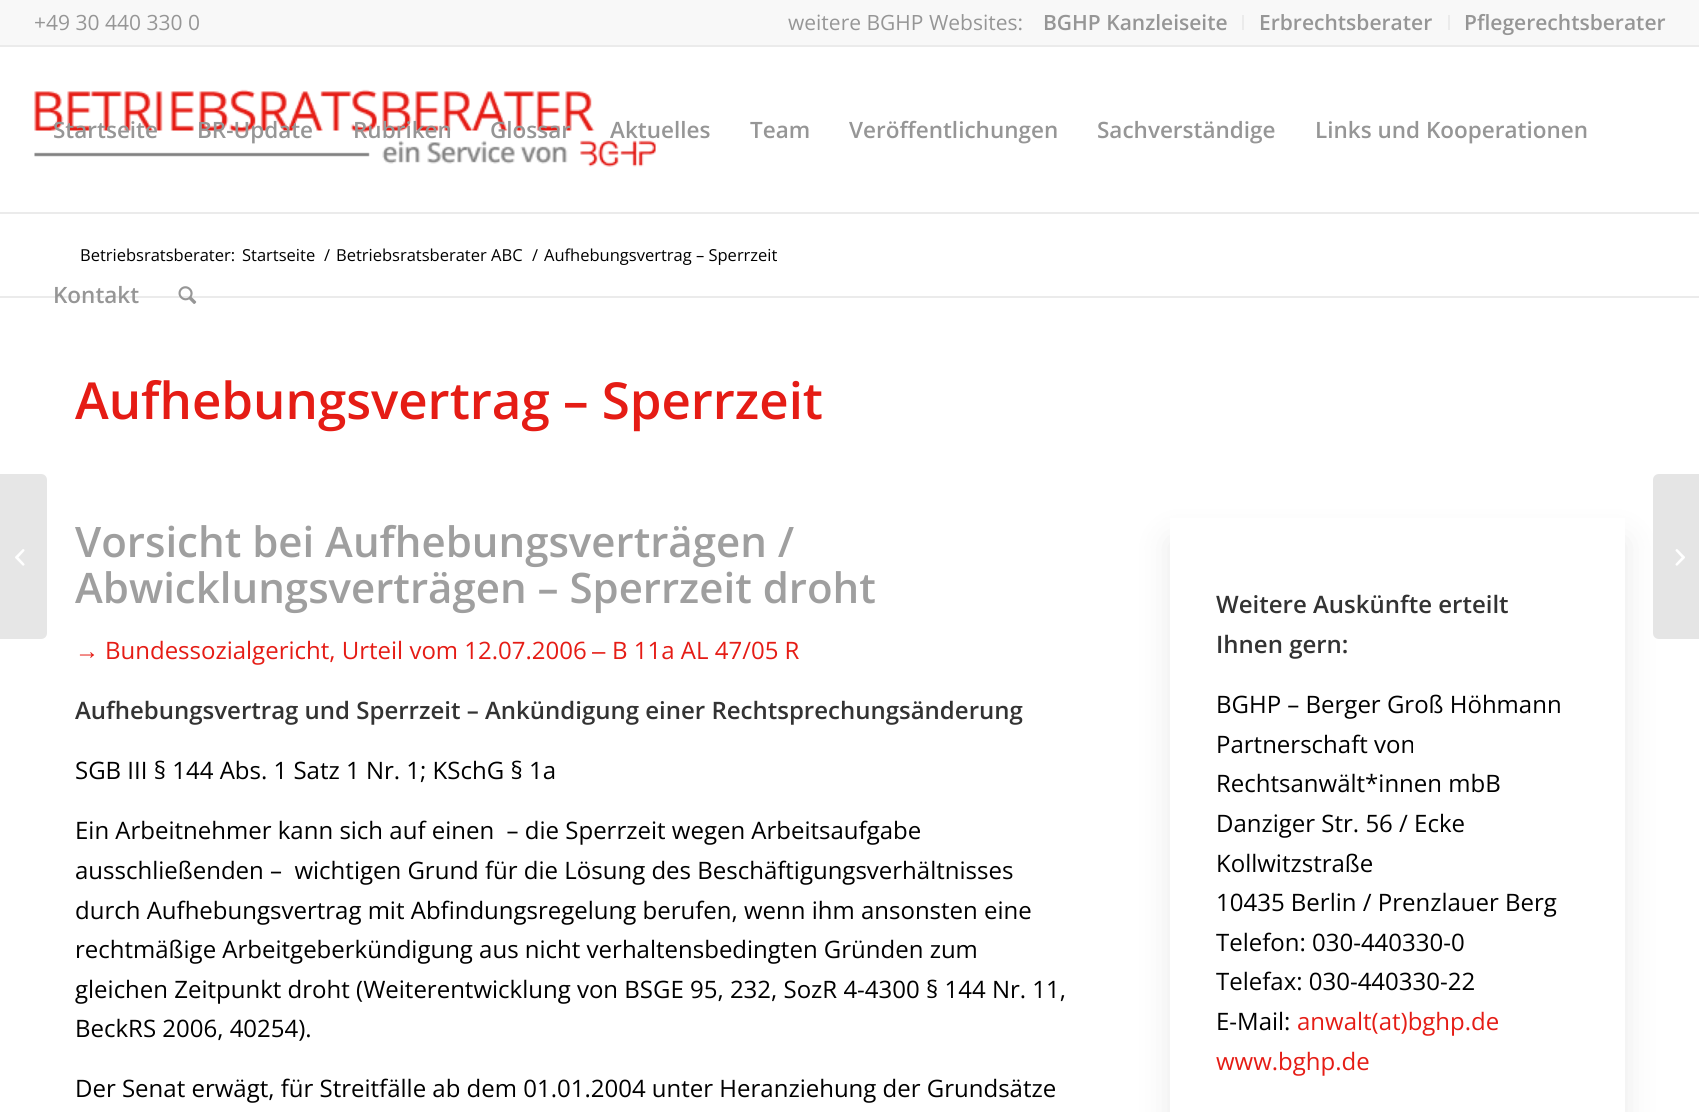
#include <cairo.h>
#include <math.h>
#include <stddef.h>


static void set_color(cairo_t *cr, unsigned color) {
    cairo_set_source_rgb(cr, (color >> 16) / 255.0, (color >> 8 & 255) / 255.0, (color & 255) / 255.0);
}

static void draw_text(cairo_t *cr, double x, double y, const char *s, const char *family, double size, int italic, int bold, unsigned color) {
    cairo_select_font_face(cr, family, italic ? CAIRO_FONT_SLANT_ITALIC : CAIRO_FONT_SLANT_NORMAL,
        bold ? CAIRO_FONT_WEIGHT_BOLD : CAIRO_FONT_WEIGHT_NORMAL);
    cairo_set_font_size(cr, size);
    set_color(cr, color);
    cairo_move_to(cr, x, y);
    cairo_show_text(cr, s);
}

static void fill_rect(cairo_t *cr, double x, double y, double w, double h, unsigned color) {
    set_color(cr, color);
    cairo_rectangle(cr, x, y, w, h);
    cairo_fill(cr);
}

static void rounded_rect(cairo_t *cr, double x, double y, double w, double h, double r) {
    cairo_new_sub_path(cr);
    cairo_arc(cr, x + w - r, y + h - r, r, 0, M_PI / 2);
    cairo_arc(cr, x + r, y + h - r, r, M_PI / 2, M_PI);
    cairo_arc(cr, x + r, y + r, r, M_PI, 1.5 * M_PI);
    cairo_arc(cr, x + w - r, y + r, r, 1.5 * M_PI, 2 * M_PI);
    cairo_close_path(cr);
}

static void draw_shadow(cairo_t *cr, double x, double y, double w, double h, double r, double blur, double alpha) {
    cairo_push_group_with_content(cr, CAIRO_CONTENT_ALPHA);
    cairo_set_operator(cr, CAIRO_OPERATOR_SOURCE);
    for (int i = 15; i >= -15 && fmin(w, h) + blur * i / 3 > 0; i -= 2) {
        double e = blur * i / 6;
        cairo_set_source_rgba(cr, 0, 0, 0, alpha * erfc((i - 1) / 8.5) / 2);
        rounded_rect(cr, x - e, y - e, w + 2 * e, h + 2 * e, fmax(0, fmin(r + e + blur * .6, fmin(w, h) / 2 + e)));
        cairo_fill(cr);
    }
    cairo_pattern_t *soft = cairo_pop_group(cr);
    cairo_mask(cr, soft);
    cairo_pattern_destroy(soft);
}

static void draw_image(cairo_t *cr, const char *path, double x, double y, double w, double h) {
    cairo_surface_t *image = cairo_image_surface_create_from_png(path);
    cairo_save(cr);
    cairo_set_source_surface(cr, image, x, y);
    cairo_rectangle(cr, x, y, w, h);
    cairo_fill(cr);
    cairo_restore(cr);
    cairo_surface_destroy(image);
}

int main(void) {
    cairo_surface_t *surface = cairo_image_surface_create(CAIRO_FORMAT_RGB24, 1699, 1112);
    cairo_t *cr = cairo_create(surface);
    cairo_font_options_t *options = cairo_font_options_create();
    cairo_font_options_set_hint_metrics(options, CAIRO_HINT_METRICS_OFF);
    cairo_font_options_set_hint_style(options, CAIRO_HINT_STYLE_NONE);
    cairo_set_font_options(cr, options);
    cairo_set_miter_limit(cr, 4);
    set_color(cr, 0xFFFFFF);
    cairo_paint(cr);
    fill_rect(cr, 0, 0, 1699, 45, 0xF8F8F8);
    fill_rect(cr, 0, 45, 1699, 2, 0xEBEBEB);
    draw_text(cr, 34, 30, "+49 30 440 330 0", "Open Sans", 21, 0, 0, 0x969696);
    draw_text(cr, 788, 30, "weitere BGHP Websites:", "Open Sans", 21, 0, 0, 0x969696);
    fill_rect(cr, 1242, 15, 2, 15, 0xEBEBEB);
    draw_text(cr, 1043, 30, "BGHP Kanzleiseite", "Open Sans SemiBold", 21, 0, 0, 0x969696);
    fill_rect(cr, 1448, 15, 2, 15, 0xEBEBEB);
    draw_text(cr, 1259, 30, "Erbrechtsberater", "Open Sans SemiBold", 21, 0, 0, 0x969696);
    draw_text(cr, 1464, 30, "Pflegerechtsberater", "Open Sans SemiBold", 21, 0, 0, 0x969696);
    fill_rect(cr, 0, 212, 1699, 2, 0xEBEBEB);
    draw_image(cr, "assets/img1.png", 34, 89, 622, 78);
    draw_text(cr, 53, 138, "Startseite", "Open Sans SemiBold", 22.5, 0, 0, 0x969696);
    draw_text(cr, 197, 138, "BR-Update", "Open Sans SemiBold", 22.5, 0, 0, 0x969696);
    draw_text(cr, 353, 138, "Rubriken", "Open Sans SemiBold", 22.5, 0, 0, 0x969696);
    draw_text(cr, 490, 138, "Glossar", "Open Sans SemiBold", 22.5, 0, 0, 0x969696);
    draw_text(cr, 610, 138, "Aktuelles", "Open Sans SemiBold", 22.5, 0, 0, 0x969696);
    draw_text(cr, 750, 138, "Team", "Open Sans SemiBold", 22.5, 0, 0, 0x969696);
    draw_text(cr, 849, 138, "Veröffentlichungen", "Open Sans SemiBold", 22.5, 0, 0, 0x969696);
    draw_text(cr, 1097, 138, "Sachverständige", "Open Sans SemiBold", 22.5, 0, 0, 0x969696);
    draw_text(cr, 1315, 138, "Links und Kooperationen", "Open Sans SemiBold", 22.5, 0, 0, 0x969696);
    fill_rect(cr, 0, 296, 1699, 2, 0xEBEBEB);
    draw_text(cr, 53, 303, "Kontakt", "Open Sans SemiBold", 22.5, 0, 0, 0x969696);
    draw_image(cr, "assets/img2.png", 178, 286, 19, 18);
    set_color(cr, 0xE6E6E6);
    cairo_new_path(cr);
    cairo_move_to(cr, 0, 474);
    cairo_line_to(cr, 41, 474);
    cairo_curve_to(cr, 44.5, 474, 47, 476.5, 47, 480);
    cairo_line_to(cr, 47, 633);
    cairo_curve_to(cr, 47, 636.5, 44.5, 639, 41, 639);
    cairo_line_to(cr, 0, 639);
    cairo_close_path(cr);
    cairo_fill(cr);
    draw_image(cr, "assets/img3.png", 15, 549, 10, 17);
    draw_text(cr, 80, 261, "Betriebsratsberater:", "Open Sans", 16.5, 0, 0, 0x000000);
    draw_text(cr, 242, 261, "Startseite", "Open Sans", 16.5, 0, 0, 0x000000);
    draw_text(cr, 324, 261, "/", "Open Sans", 16.5, 0, 0, 0x000000);
    draw_text(cr, 336, 261, "Betriebsratsberater ABC", "Open Sans", 16.5, 0, 0, 0x000000);
    draw_text(cr, 532, 261, "/", "Open Sans", 16.5, 0, 0, 0x000000);
    draw_text(cr, 544, 261, "Aufhebungsvertrag – Sperrzeit", "Open Sans", 16.5, 0, 0, 0x000000);
    draw_text(cr, 75, 419, "Aufhebungsvertrag – Sperrzeit", "Open Sans SemiBold", 51, 0, 0, 0xE51C15);
    draw_text(cr, 75, 557, "Vorsicht bei Aufhebungsverträgen /", "Open Sans SemiBold", 42, 0, 0, 0x9F9F9F);
    draw_text(cr, 75, 603, "Abwicklungsverträgen – Sperrzeit droht", "Open Sans SemiBold", 42, 0, 0, 0x9F9F9F);
    draw_text(cr, 75, 659, "→", "Liberation Sans", 24, 0, 0, 0xE51C15);
    draw_text(cr, 105, 659, "Bundessozialgericht, Urteil vom 12.07.2006", "Open Sans", 24, 0, 0, 0xE51C15);
    draw_text(cr, 592, 659, "–", "Liberation Sans", 24, 0, 0, 0xE51C15);
    draw_text(cr, 612, 659, "B 11a AL 47/05 R", "Open Sans", 24, 0, 0, 0xE51C15);
    draw_text(cr, 75, 719, "Aufhebungsvertrag und Sperrzeit – Ankündigung einer Rechtsprechungsänderung", "Open Sans SemiBold", 24, 0, 0, 0x333333);
    draw_text(cr, 75, 779, "SGB III § 144 Abs. 1 Satz 1 Nr. 1; KSchG § 1a", "Open Sans", 24, 0, 0, 0x000000);
    draw_text(cr, 75, 839, "Ein Arbeitnehmer kann sich auf einen  – die Sperrzeit wegen Arbeitsaufgabe", "Open Sans", 24, 0, 0, 0x000000);
    draw_text(cr, 75, 879, "ausschließenden –  wichtigen Grund für die Lösung des Beschäftigungsverhältnisses", "Open Sans", 24, 0, 0, 0x000000);
    draw_text(cr, 75, 919, "durch Aufhebungsvertrag mit Abfindungsregelung berufen, wenn ihm ansonsten eine", "Open Sans", 24, 0, 0, 0x000000);
    draw_text(cr, 75, 958, "rechtmäßige Arbeitgeberkündigung aus nicht verhaltensbedingten Gründen zum", "Open Sans", 24, 0, 0, 0x000000);
    draw_text(cr, 75, 998, "gleichen Zeitpunkt droht (Weiterentwicklung von BSGE 95, 232, SozR 4-4300 § 144 Nr. 11,", "Open Sans", 24, 0, 0, 0x000000);
    draw_text(cr, 75, 1037, "BeckRS 2006, 40254).", "Open Sans", 24, 0, 0, 0x000000);
    draw_text(cr, 75, 1097, "Der Senat erwägt, für Streitfälle ab dem 01.01.2004 unter Heranziehung der Grundsätze", "Open Sans", 24, 0, 0, 0x000000);
    cairo_save(cr);
    cairo_set_fill_rule(cr, CAIRO_FILL_RULE_EVEN_ODD);
    cairo_new_path(cr);
    cairo_move_to(cr, 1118, 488);
    cairo_line_to(cr, 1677, 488);
    cairo_line_to(cr, 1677, 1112);
    cairo_line_to(cr, 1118, 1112);
    cairo_close_path(cr);
    cairo_move_to(cr, 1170, 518);
    cairo_line_to(cr, 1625, 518);
    cairo_line_to(cr, 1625, 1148);
    cairo_line_to(cr, 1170, 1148);
    cairo_close_path(cr);
    cairo_clip(cr);
    set_color(cr, 0x000000);
    draw_shadow(cr, 1170, 540, 455, 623, 0, 17, 0.09);
    cairo_restore(cr);
    draw_text(cr, 1216, 613, "Weitere Auskünfte erteilt", "Open Sans SemiBold", 24, 0, 0, 0x333333);
    draw_text(cr, 1216, 653, "Ihnen gern:", "Open Sans SemiBold", 24, 0, 0, 0x333333);
    draw_text(cr, 1216, 713, "BGHP – Berger Groß Höhmann", "Open Sans", 24, 0, 0, 0x000000);
    draw_text(cr, 1216, 753, "Partnerschaft von", "Open Sans", 24, 0, 0, 0x000000);
    draw_text(cr, 1216, 792, "Rechtsanwält*innen mbB", "Open Sans", 24, 0, 0, 0x000000);
    draw_text(cr, 1216, 832, "Danziger Str. 56 / Ecke", "Open Sans", 24, 0, 0, 0x000000);
    draw_text(cr, 1216, 872, "Kollwitzstraße", "Open Sans", 24, 0, 0, 0x000000);
    draw_text(cr, 1216, 911, "10435 Berlin / Prenzlauer Berg", "Open Sans", 24, 0, 0, 0x000000);
    draw_text(cr, 1216, 951, "Telefon: 030-440330-0", "Open Sans", 24, 0, 0, 0x000000);
    draw_text(cr, 1216, 990, "Telefax: 030-440330-22", "Open Sans", 24, 0, 0, 0x000000);
    draw_text(cr, 1216, 1030, "E-Mail:", "Open Sans", 24, 0, 0, 0x000000);
    draw_text(cr, 1297, 1030, "anwalt(at)bghp.de", "Open Sans", 24, 0, 0, 0xE51C15);
    draw_text(cr, 1216, 1070, "www.bghp.de", "Open Sans", 24, 0, 0, 0xE51C15);
    set_color(cr, 0xE5E5E5);
    cairo_new_path(cr);
    cairo_move_to(cr, 1659, 474);
    cairo_line_to(cr, 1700, 474);
    cairo_line_to(cr, 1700, 639);
    cairo_line_to(cr, 1659, 639);
    cairo_curve_to(cr, 1655.5, 639, 1653, 636.5, 1653, 633);
    cairo_line_to(cr, 1653, 480);
    cairo_curve_to(cr, 1653, 476.5, 1655.5, 474, 1659, 474);
    cairo_close_path(cr);
    cairo_fill(cr);
    draw_image(cr, "assets/img4.png", 1675, 549, 10, 17);
    cairo_surface_write_to_png(surface, "output.png");
    cairo_font_options_destroy(options);
    cairo_destroy(cr);
    cairo_surface_destroy(surface);
    return 0;
}
